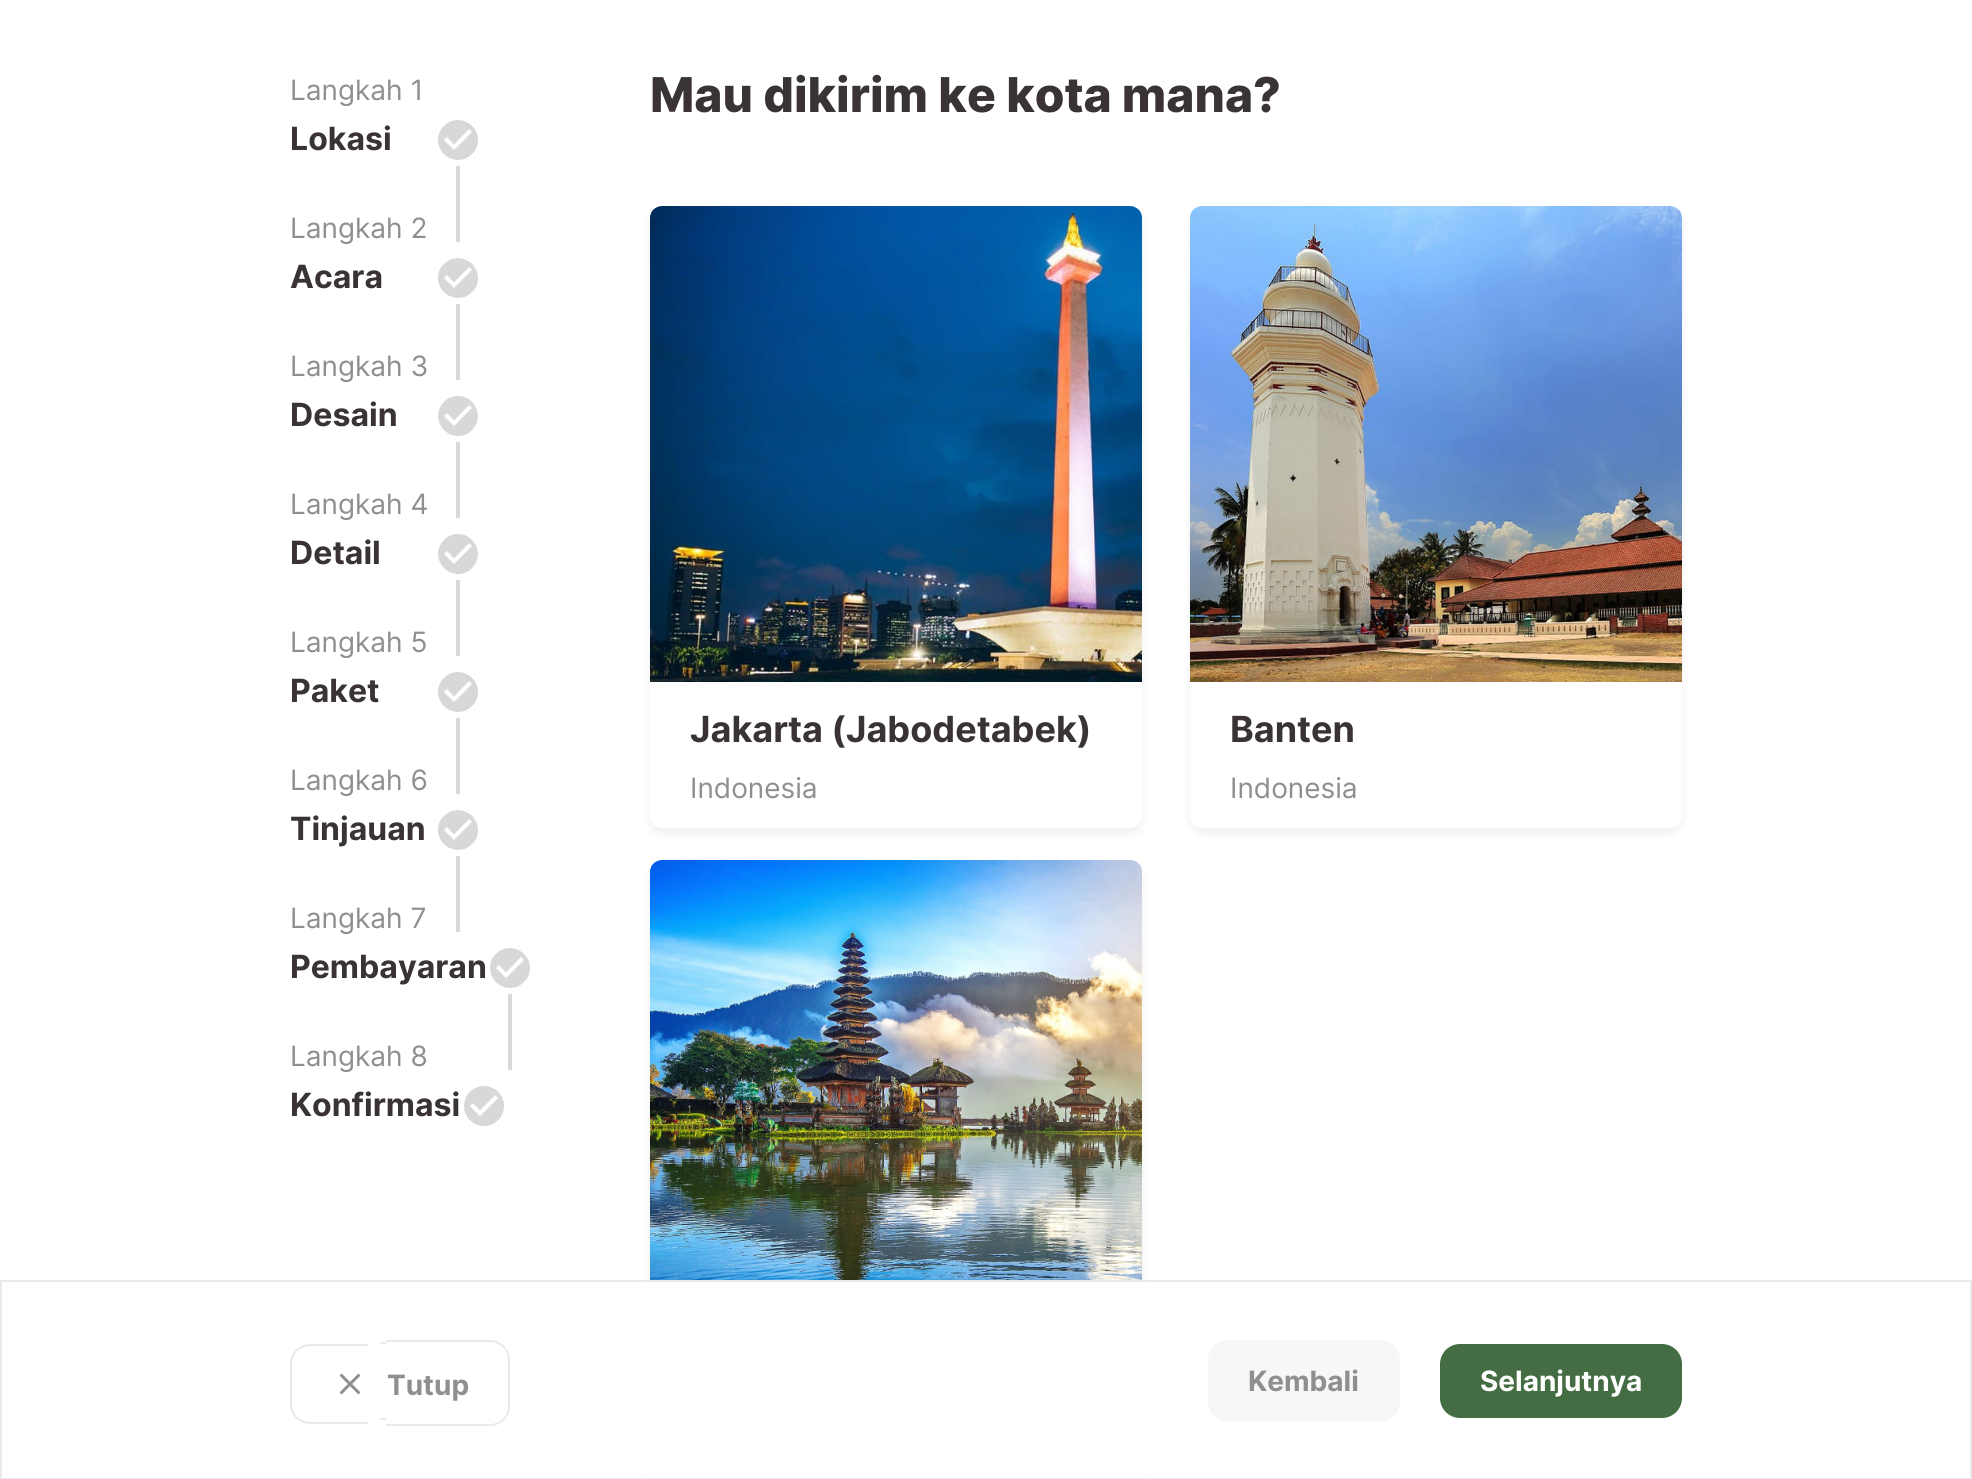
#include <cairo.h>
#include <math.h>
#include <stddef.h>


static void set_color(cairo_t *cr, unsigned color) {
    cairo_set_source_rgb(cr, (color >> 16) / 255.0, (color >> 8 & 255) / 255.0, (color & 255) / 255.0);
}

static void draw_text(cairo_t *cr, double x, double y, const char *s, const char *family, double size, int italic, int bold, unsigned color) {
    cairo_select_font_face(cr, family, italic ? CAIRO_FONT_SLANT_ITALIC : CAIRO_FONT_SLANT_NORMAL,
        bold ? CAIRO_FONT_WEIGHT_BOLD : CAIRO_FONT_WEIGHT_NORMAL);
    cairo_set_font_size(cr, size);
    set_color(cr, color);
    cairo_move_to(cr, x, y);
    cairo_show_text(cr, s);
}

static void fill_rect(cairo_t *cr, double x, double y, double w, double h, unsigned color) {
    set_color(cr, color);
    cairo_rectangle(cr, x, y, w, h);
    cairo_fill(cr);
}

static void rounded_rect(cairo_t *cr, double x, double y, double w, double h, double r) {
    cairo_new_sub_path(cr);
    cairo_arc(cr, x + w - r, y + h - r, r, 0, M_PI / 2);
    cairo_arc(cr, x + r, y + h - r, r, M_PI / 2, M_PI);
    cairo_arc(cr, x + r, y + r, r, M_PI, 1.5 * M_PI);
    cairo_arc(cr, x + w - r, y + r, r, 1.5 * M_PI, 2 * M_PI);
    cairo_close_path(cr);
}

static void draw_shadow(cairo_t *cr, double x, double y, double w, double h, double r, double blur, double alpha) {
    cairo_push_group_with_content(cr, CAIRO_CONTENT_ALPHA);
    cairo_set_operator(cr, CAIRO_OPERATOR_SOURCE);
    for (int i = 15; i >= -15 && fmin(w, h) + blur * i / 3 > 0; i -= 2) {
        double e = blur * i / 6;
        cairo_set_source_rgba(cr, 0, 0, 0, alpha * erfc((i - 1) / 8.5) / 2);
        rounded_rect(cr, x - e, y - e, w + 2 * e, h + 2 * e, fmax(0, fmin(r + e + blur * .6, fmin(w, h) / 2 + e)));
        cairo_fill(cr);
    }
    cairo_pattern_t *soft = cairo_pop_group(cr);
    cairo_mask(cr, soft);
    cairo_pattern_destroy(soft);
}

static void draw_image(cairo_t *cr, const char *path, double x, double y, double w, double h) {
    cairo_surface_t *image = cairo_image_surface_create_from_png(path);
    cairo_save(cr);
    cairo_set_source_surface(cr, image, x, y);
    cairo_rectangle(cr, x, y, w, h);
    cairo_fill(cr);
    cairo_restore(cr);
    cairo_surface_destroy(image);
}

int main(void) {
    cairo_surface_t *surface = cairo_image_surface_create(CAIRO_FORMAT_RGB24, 1972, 1479);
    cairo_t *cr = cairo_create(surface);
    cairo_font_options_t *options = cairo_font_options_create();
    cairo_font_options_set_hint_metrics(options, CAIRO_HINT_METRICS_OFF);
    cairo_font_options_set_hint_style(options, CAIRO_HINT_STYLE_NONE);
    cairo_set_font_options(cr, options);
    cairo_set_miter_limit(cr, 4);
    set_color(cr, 0xFFFFFF);
    cairo_paint(cr);
    draw_text(cr, 290, 100, "Langkah 1", "Inter", 28, 0, 0, 0x908E8E);
    draw_text(cr, 290, 150, "Lokasi", "Inter", 32, 0, 1, 0x3A3335);
    set_color(cr, 0xD8D8D8);
    cairo_new_path(cr);
    cairo_move_to(cr, 454, 150);
    cairo_line_to(cr, 472, 132);
    cairo_line_to(cr, 469, 129);
    cairo_line_to(cr, 454, 144.5);
    cairo_line_to(cr, 447, 137);
    cairo_line_to(cr, 444, 140);
    cairo_close_path(cr);
    cairo_move_to(cr, 444, 126);
    cairo_curve_to(cr, 457, 112.5, 479.5, 123.5, 478, 142);
    cairo_curve_to(cr, 477.5, 146.5, 475.5, 151, 472, 154);
    cairo_curve_to(cr, 459, 167.5, 436.5, 156.5, 438, 138);
    cairo_curve_to(cr, 438.5, 133.5, 440.5, 129, 444, 126);
    cairo_close_path(cr);
    cairo_fill(cr);
    fill_rect(cr, 456, 166, 4, 76, 0xD8D8D8);
    draw_text(cr, 290, 238, "Langkah 2", "Inter", 28, 0, 0, 0x908E8E);
    draw_text(cr, 290, 288, "Acara", "Inter", 32, 0, 1, 0x3A3335);
    set_color(cr, 0xD8D8D8);
    cairo_new_path(cr);
    cairo_move_to(cr, 454, 288);
    cairo_line_to(cr, 472, 270);
    cairo_line_to(cr, 469, 267);
    cairo_line_to(cr, 454, 282.5);
    cairo_line_to(cr, 447, 275);
    cairo_line_to(cr, 444, 278);
    cairo_close_path(cr);
    cairo_move_to(cr, 444, 264);
    cairo_curve_to(cr, 457, 250.5, 479.5, 261.5, 478, 280);
    cairo_curve_to(cr, 477.5, 284.5, 475.5, 289, 472, 292);
    cairo_curve_to(cr, 459, 305.5, 436.5, 294.5, 438, 276);
    cairo_curve_to(cr, 438.5, 271.5, 440.5, 267, 444, 264);
    cairo_close_path(cr);
    cairo_fill(cr);
    fill_rect(cr, 456, 304, 4, 76, 0xD8D8D8);
    draw_text(cr, 290, 376, "Langkah 3", "Inter", 28, 0, 0, 0x908E8E);
    draw_text(cr, 290, 426, "Desain", "Inter", 32, 0, 1, 0x3A3335);
    set_color(cr, 0xD8D8D8);
    cairo_new_path(cr);
    cairo_move_to(cr, 454, 426);
    cairo_line_to(cr, 472, 408);
    cairo_line_to(cr, 469, 405);
    cairo_line_to(cr, 454, 420.5);
    cairo_line_to(cr, 447, 413);
    cairo_line_to(cr, 444, 416);
    cairo_close_path(cr);
    cairo_move_to(cr, 444, 402);
    cairo_curve_to(cr, 447, 398.5, 451.5, 396.5, 456, 396);
    cairo_curve_to(cr, 474.5, 394.5, 485.5, 417, 472, 430);
    cairo_curve_to(cr, 469, 433.5, 464.5, 435.5, 460, 436);
    cairo_curve_to(cr, 441.5, 437.5, 430.5, 415, 444, 402);
    cairo_close_path(cr);
    cairo_fill(cr);
    fill_rect(cr, 456, 442, 4, 76, 0xD8D8D8);
    draw_text(cr, 290, 514, "Langkah 4", "Inter", 28, 0, 0, 0x908E8E);
    draw_text(cr, 290, 564, "Detail", "Inter", 32, 0, 1, 0x3A3335);
    set_color(cr, 0xD8D8D8);
    cairo_new_path(cr);
    cairo_move_to(cr, 454, 564);
    cairo_line_to(cr, 472, 546);
    cairo_line_to(cr, 469, 543);
    cairo_line_to(cr, 454, 558.5);
    cairo_line_to(cr, 447, 551);
    cairo_line_to(cr, 444, 554);
    cairo_close_path(cr);
    cairo_move_to(cr, 444, 540);
    cairo_curve_to(cr, 447, 536.5, 451.5, 534.5, 456, 534);
    cairo_curve_to(cr, 474.5, 532.5, 485.5, 555, 472, 568);
    cairo_curve_to(cr, 469, 571.5, 464.5, 573.5, 460, 574);
    cairo_curve_to(cr, 441.5, 575.5, 430.5, 553, 444, 540);
    cairo_close_path(cr);
    cairo_fill(cr);
    fill_rect(cr, 456, 580, 4, 76, 0xD8D8D8);
    draw_text(cr, 290, 652, "Langkah 5", "Inter", 28, 0, 0, 0x908E8E);
    draw_text(cr, 290, 702, "Paket", "Inter", 32, 0, 1, 0x3A3335);
    set_color(cr, 0xD8D8D8);
    cairo_new_path(cr);
    cairo_move_to(cr, 454, 702);
    cairo_line_to(cr, 472, 684);
    cairo_line_to(cr, 469, 681);
    cairo_line_to(cr, 454, 696.5);
    cairo_line_to(cr, 447, 689);
    cairo_line_to(cr, 444, 692);
    cairo_close_path(cr);
    cairo_move_to(cr, 444, 678);
    cairo_curve_to(cr, 457, 664.5, 479.5, 675.5, 478, 694);
    cairo_curve_to(cr, 477.5, 698.5, 475.5, 703, 472, 706);
    cairo_curve_to(cr, 459, 719.5, 436.5, 708.5, 438, 690);
    cairo_curve_to(cr, 438.5, 685.5, 440.5, 681, 444, 678);
    cairo_close_path(cr);
    cairo_fill(cr);
    fill_rect(cr, 456, 718, 4, 76, 0xD8D8D8);
    draw_text(cr, 290, 790, "Langkah 6", "Inter", 28, 0, 0, 0x908E8E);
    draw_text(cr, 290, 840, "Tinjauan", "Inter", 32, 0, 1, 0x3A3335);
    set_color(cr, 0xD8D8D8);
    cairo_new_path(cr);
    cairo_move_to(cr, 454, 840);
    cairo_line_to(cr, 472, 822);
    cairo_line_to(cr, 469, 819);
    cairo_line_to(cr, 454, 834.5);
    cairo_line_to(cr, 447, 827);
    cairo_line_to(cr, 444, 830);
    cairo_close_path(cr);
    cairo_move_to(cr, 444, 816);
    cairo_curve_to(cr, 457, 802.5, 479.5, 813.5, 478, 832);
    cairo_curve_to(cr, 477.5, 836.5, 475.5, 841, 472, 844);
    cairo_curve_to(cr, 459, 857.5, 436.5, 846.5, 438, 828);
    cairo_curve_to(cr, 438.5, 823.5, 440.5, 819, 444, 816);
    cairo_close_path(cr);
    cairo_fill(cr);
    fill_rect(cr, 456, 856, 4, 76, 0xD8D8D8);
    draw_text(cr, 290, 928, "Langkah 7", "Inter", 28, 0, 0, 0x908E8E);
    draw_text(cr, 290, 978, "Pembayaran", "Inter", 32, 0, 1, 0x3A3335);
    set_color(cr, 0xD8D8D8);
    cairo_new_path(cr);
    cairo_move_to(cr, 506, 978);
    cairo_line_to(cr, 524, 960);
    cairo_line_to(cr, 521, 957);
    cairo_line_to(cr, 506, 972.5);
    cairo_line_to(cr, 499, 965);
    cairo_line_to(cr, 496, 968);
    cairo_close_path(cr);
    cairo_move_to(cr, 496, 954);
    cairo_curve_to(cr, 509, 940.5, 531.5, 951.5, 530, 970);
    cairo_curve_to(cr, 529.5, 974.5, 527.5, 979, 524, 982);
    cairo_curve_to(cr, 511, 995.5, 488.5, 984.5, 490, 966);
    cairo_curve_to(cr, 490.5, 961.5, 492.5, 957, 496, 954);
    cairo_close_path(cr);
    cairo_fill(cr);
    fill_rect(cr, 508, 994, 4, 76, 0xD8D8D8);
    draw_text(cr, 290, 1066, "Langkah 8", "Inter", 28, 0, 0, 0x908E8E);
    draw_text(cr, 290, 1116, "Konfirmasi", "Inter", 32, 0, 1, 0x3A3335);
    draw_image(cr, "assets/img1.png", 464, 1086, 40, 40);
    draw_text(cr, 650, 112, "Mau dikirim ke kota mana?", "Inter ExtraBold", 48, 0, 0, 0x3A3335);
    set_color(cr, 0x999BA8);
    draw_shadow(cr, 650, 212, 492, 622, 12, 4, 0.15);
    set_color(cr, 0xFFFFFF);
    rounded_rect(cr, 650, 206, 492, 622, 12);
    cairo_fill(cr);
    draw_image(cr, "assets/img2.png", 650, 206, 492, 476);
    draw_text(cr, 690, 742, "Jakarta (Jabodetabek)", "Inter", 36, 0, 1, 0x3A3335);
    draw_text(cr, 690, 798, "Indonesia", "Inter", 28, 0, 0, 0x908E8E);
    set_color(cr, 0x999BA8);
    draw_shadow(cr, 1190, 212, 492, 622, 12, 4, 0.15);
    set_color(cr, 0xFFFFFF);
    rounded_rect(cr, 1190, 206, 492, 622, 12);
    cairo_fill(cr);
    draw_image(cr, "assets/img3.png", 1190, 206, 492, 476);
    draw_text(cr, 1230, 742, "Banten", "Inter", 36, 0, 1, 0x3A3335);
    draw_text(cr, 1230, 798, "Indonesia", "Inter", 28, 0, 0, 0x908E8E);
    set_color(cr, 0x999BA8);
    draw_shadow(cr, 650, 866, 492, 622, 12, 4, 0.15);
    draw_image(cr, "assets/img4.png", 650, 860, 492, 420);
    fill_rect(cr, 646, 1282, 500, 196, 0xFFFFFF);
    cairo_rectangle(cr, 1, 1281, 1970, 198);
    set_color(cr, 0xEDE8E9);
    cairo_stroke(cr);
    cairo_set_fill_rule(cr, CAIRO_FILL_RULE_EVEN_ODD);
    cairo_new_path(cr);
    cairo_move_to(cr, 310, 1344);
    cairo_line_to(cr, 368, 1344);
    cairo_line_to(cr, 368, 1424);
    cairo_line_to(cr, 310, 1424);
    cairo_curve_to(cr, 299, 1424, 290, 1415, 290, 1404);
    cairo_line_to(cr, 290, 1364);
    cairo_curve_to(cr, 290, 1353, 299, 1344, 310, 1344);
    cairo_close_path(cr);
    cairo_move_to(cr, 310, 1346);
    cairo_line_to(cr, 368, 1346);
    cairo_line_to(cr, 368, 1422);
    cairo_line_to(cr, 310, 1422);
    cairo_curve_to(cr, 300, 1422, 292, 1414, 292, 1404);
    cairo_line_to(cr, 292, 1364);
    cairo_curve_to(cr, 292, 1354, 300, 1346, 310, 1346);
    cairo_close_path(cr);
    cairo_fill(cr);
    fill_rect(cr, 380, 1342, 6, 2, 0xEDE8E9);
    fill_rect(cr, 380, 1418, 6, 2, 0xEDE8E9);
    cairo_new_path(cr);
    cairo_move_to(cr, 386, 1340);
    cairo_line_to(cr, 490, 1340);
    cairo_curve_to(cr, 501, 1340, 510, 1349, 510, 1360);
    cairo_line_to(cr, 510, 1406);
    cairo_curve_to(cr, 510, 1417, 501, 1426, 490, 1426);
    cairo_line_to(cr, 386, 1426);
    cairo_close_path(cr);
    cairo_move_to(cr, 386, 1342);
    cairo_line_to(cr, 490, 1342);
    cairo_curve_to(cr, 500, 1342, 508, 1350, 508, 1360);
    cairo_line_to(cr, 508, 1406);
    cairo_curve_to(cr, 508, 1416, 500, 1424, 490, 1424);
    cairo_line_to(cr, 386, 1424);
    cairo_close_path(cr);
    cairo_fill(cr);
    draw_image(cr, "assets/img5.png", 339, 1373, 22, 22);
    draw_text(cr, 387, 1395, "Tutup", "Inter", 28, 0, 1, 0x908E8E);
    set_color(cr, 0xF8F7F8);
    rounded_rect(cr, 1208, 1340, 192, 82, 20);
    cairo_fill(cr);
    draw_text(cr, 1248, 1391, "Kembali", "Inter", 28, 0, 1, 0x908E8E);
    set_color(cr, 0x456D44);
    rounded_rect(cr, 1440, 1344, 242, 74, 20);
    cairo_fill(cr);
    draw_text(cr, 1480, 1391, "Selanjutnya", "Inter", 28, 0, 1, 0xFFFFFF);
    cairo_surface_write_to_png(surface, "output.png");
    cairo_font_options_destroy(options);
    cairo_destroy(cr);
    cairo_surface_destroy(surface);
    return 0;
}
